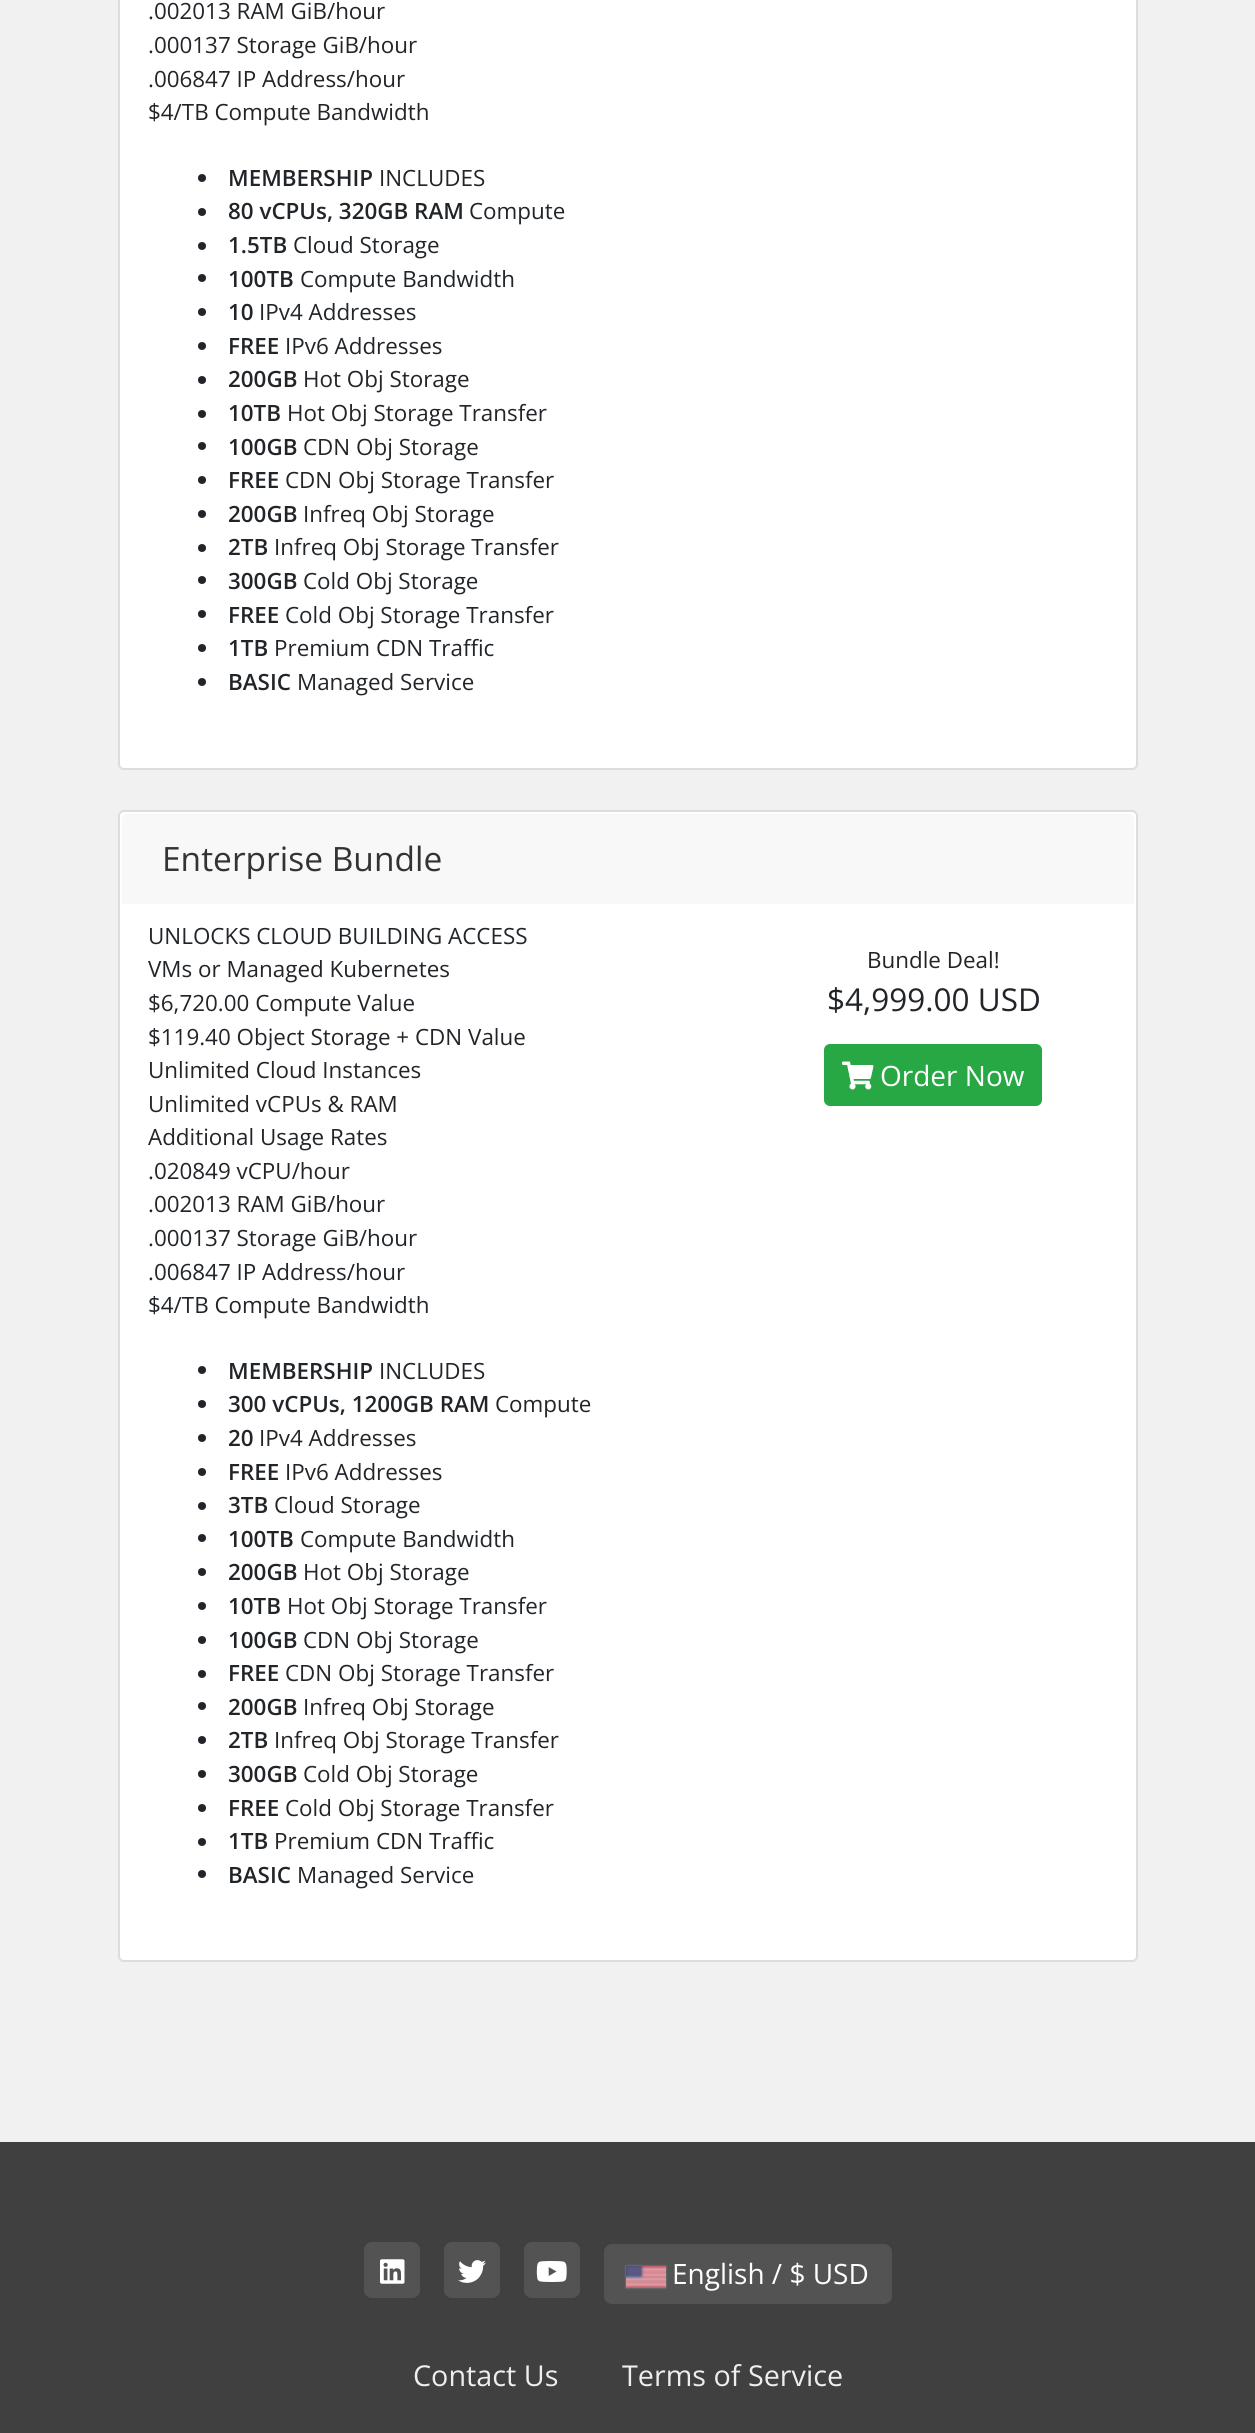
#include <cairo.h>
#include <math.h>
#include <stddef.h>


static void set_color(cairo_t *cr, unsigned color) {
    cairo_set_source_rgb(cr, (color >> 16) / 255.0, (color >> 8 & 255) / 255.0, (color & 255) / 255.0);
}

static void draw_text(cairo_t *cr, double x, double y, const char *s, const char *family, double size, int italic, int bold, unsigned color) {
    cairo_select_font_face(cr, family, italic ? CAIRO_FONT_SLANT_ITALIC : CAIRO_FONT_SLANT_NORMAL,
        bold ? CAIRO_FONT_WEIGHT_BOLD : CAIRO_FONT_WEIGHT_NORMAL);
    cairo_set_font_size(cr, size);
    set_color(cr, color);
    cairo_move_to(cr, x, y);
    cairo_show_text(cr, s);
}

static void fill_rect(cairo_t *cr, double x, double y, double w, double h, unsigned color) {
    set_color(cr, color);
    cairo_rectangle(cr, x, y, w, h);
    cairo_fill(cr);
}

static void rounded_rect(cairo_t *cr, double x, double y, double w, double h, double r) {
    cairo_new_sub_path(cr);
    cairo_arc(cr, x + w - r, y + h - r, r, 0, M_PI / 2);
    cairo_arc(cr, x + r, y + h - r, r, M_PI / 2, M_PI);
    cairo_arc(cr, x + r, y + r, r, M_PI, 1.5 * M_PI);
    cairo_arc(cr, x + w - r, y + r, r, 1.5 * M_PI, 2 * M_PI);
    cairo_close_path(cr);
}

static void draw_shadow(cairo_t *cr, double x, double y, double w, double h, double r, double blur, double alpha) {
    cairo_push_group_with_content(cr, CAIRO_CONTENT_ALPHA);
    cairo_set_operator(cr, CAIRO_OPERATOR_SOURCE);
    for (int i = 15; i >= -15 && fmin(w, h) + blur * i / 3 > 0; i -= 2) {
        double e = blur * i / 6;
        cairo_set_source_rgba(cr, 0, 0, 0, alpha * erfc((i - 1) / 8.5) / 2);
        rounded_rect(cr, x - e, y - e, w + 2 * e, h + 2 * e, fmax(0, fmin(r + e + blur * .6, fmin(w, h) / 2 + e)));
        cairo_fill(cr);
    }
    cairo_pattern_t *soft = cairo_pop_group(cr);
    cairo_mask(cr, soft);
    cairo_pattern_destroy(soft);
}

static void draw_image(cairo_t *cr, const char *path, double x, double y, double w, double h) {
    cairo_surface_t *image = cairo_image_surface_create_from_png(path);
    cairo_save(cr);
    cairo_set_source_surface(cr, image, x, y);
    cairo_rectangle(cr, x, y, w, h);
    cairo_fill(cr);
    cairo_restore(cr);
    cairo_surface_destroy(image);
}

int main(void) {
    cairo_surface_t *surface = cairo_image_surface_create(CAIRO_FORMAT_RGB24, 1255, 2433);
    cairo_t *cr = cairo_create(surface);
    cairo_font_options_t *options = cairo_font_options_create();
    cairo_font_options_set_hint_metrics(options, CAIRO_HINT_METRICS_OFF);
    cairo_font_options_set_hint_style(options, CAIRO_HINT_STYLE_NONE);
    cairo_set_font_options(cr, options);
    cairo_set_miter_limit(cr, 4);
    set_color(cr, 0xF1F1F1);
    cairo_paint(cr);
    set_color(cr, 0xFFFFFF);
    rounded_rect(cr, 119, -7, 1018, 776, 5);
    cairo_fill_preserve(cr);
    set_color(cr, 0xDDDDDD);
    cairo_stroke(cr);
    draw_text(cr, 148, 19, ".002013 RAM GiB/hour", "Open Sans", 22.4, 0, 0, 0x212529);
    draw_text(cr, 148, 53, ".000137 Storage GiB/hour", "Open Sans", 22.4, 0, 0, 0x212529);
    draw_text(cr, 148, 87, ".006847 IP Address/hour", "Open Sans", 22.4, 0, 0, 0x212529);
    draw_text(cr, 148, 120, "$4/TB Compute Bandwidth", "Open Sans", 22.4, 0, 0, 0x212529);
    cairo_new_path(cr);
    cairo_arc(cr, 202, 178, 4, 0, 2 * M_PI);
    cairo_fill(cr);
    draw_text(cr, 228, 186, "MEMBERSHIP", "Open Sans SemiBold", 22.4, 0, 0, 0x212529);
    draw_text(cr, 379, 186, "INCLUDES", "Open Sans", 22.4, 0, 0, 0x212529);
    cairo_new_path(cr);
    cairo_arc(cr, 202, 212, 4, 0, 2 * M_PI);
    cairo_fill(cr);
    draw_text(cr, 228, 219, "80 vCPUs, 320GB RAM", "Open Sans SemiBold", 22.4, 0, 0, 0x212529);
    draw_text(cr, 469, 219, "Compute", "Open Sans", 22.4, 0, 0, 0x212529);
    cairo_new_path(cr);
    cairo_arc(cr, 202, 246, 4, 0, 2 * M_PI);
    cairo_fill(cr);
    draw_text(cr, 228, 253, "1.5TB", "Open Sans SemiBold", 22.4, 0, 0, 0x212529);
    draw_text(cr, 293, 253, "Cloud Storage", "Open Sans", 22.4, 0, 0, 0x212529);
    cairo_new_path(cr);
    cairo_arc(cr, 202, 278, 4, 0, 2 * M_PI);
    cairo_fill(cr);
    draw_text(cr, 228, 287, "100TB", "Open Sans SemiBold", 22.4, 0, 0, 0x212529);
    draw_text(cr, 300, 287, "Compute Bandwidth", "Open Sans", 22.4, 0, 0, 0x212529);
    cairo_new_path(cr);
    cairo_arc(cr, 202, 312, 4, 0, 2 * M_PI);
    cairo_fill(cr);
    draw_text(cr, 228, 320, "10", "Open Sans SemiBold", 22.4, 0, 0, 0x212529);
    draw_text(cr, 259, 320, "IPv4 Addresses", "Open Sans", 22.4, 0, 0, 0x212529);
    cairo_new_path(cr);
    cairo_arc(cr, 202, 346, 4, 0, 2 * M_PI);
    cairo_fill(cr);
    draw_text(cr, 228, 354, "FREE", "Open Sans SemiBold", 22.4, 0, 0, 0x212529);
    draw_text(cr, 285, 354, "IPv6 Addresses", "Open Sans", 22.4, 0, 0, 0x212529);
    cairo_new_path(cr);
    cairo_arc(cr, 202, 380, 4, 0, 2 * M_PI);
    cairo_fill(cr);
    draw_text(cr, 228, 387, "200GB", "Open Sans SemiBold", 22.4, 0, 0, 0x212529);
    draw_text(cr, 303, 387, "Hot Obj Storage", "Open Sans", 22.4, 0, 0, 0x212529);
    cairo_new_path(cr);
    cairo_arc(cr, 202, 414, 4, 0, 2 * M_PI);
    cairo_fill(cr);
    draw_text(cr, 228, 421, "10TB", "Open Sans SemiBold", 22.4, 0, 0, 0x212529);
    draw_text(cr, 287, 421, "Hot Obj Storage Transfer", "Open Sans", 22.4, 0, 0, 0x212529);
    cairo_new_path(cr);
    cairo_arc(cr, 202, 446, 4, 0, 2 * M_PI);
    cairo_fill(cr);
    draw_text(cr, 228, 455, "100GB", "Open Sans SemiBold", 22.4, 0, 0, 0x212529);
    draw_text(cr, 303, 455, "CDN Obj Storage", "Open Sans", 22.4, 0, 0, 0x212529);
    cairo_new_path(cr);
    cairo_arc(cr, 202, 480, 4, 0, 2 * M_PI);
    cairo_fill(cr);
    draw_text(cr, 228, 488, "FREE", "Open Sans SemiBold", 22.4, 0, 0, 0x212529);
    draw_text(cr, 285, 488, "CDN Obj Storage Transfer", "Open Sans", 22.4, 0, 0, 0x212529);
    cairo_new_path(cr);
    cairo_arc(cr, 202, 514, 4, 0, 2 * M_PI);
    cairo_fill(cr);
    draw_text(cr, 228, 522, "200GB", "Open Sans SemiBold", 22.4, 0, 0, 0x212529);
    draw_text(cr, 303, 522, "Infreq Obj Storage", "Open Sans", 22.4, 0, 0, 0x212529);
    cairo_new_path(cr);
    cairo_arc(cr, 202, 548, 4, 0, 2 * M_PI);
    cairo_fill(cr);
    draw_text(cr, 228, 555, "2TB", "Open Sans SemiBold", 22.4, 0, 0, 0x212529);
    draw_text(cr, 274, 555, "Infreq Obj Storage Transfer", "Open Sans", 22.4, 0, 0, 0x212529);
    cairo_new_path(cr);
    cairo_arc(cr, 202, 580, 4, 0, 2 * M_PI);
    cairo_fill(cr);
    draw_text(cr, 228, 589, "300GB", "Open Sans SemiBold", 22.4, 0, 0, 0x212529);
    draw_text(cr, 303, 589, "Cold Obj Storage", "Open Sans", 22.4, 0, 0, 0x212529);
    cairo_new_path(cr);
    cairo_arc(cr, 202, 614, 4, 0, 2 * M_PI);
    cairo_fill(cr);
    draw_text(cr, 228, 623, "FREE", "Open Sans SemiBold", 22.4, 0, 0, 0x212529);
    draw_text(cr, 285, 623, "Cold Obj Storage Transfer", "Open Sans", 22.4, 0, 0, 0x212529);
    cairo_new_path(cr);
    cairo_arc(cr, 202, 648, 4, 0, 2 * M_PI);
    cairo_fill(cr);
    draw_text(cr, 228, 656, "1TB", "Open Sans SemiBold", 22.4, 0, 0, 0x212529);
    draw_text(cr, 274, 656, "Premium CDN Traffic", "Open Sans", 22.4, 0, 0, 0x212529);
    cairo_new_path(cr);
    cairo_arc(cr, 202, 682, 4, 0, 2 * M_PI);
    cairo_fill(cr);
    draw_text(cr, 228, 690, "BASIC", "Open Sans SemiBold", 22.4, 0, 0, 0x212529);
    draw_text(cr, 297, 690, "Managed Service", "Open Sans", 22.4, 0, 0, 0x212529);
    set_color(cr, 0xFFFFFF);
    rounded_rect(cr, 119, 811, 1018, 1150, 5);
    cairo_fill_preserve(cr);
    set_color(cr, 0xDDDDDD);
    cairo_stroke(cr);
    set_color(cr, 0xF8F8F8);
    cairo_new_path(cr);
    cairo_move_to(cr, 128, 814);
    cairo_line_to(cr, 1128, 814);
    cairo_curve_to(cr, 1131.5, 814, 1134, 816.5, 1134, 820);
    cairo_line_to(cr, 1134, 904);
    cairo_line_to(cr, 122, 904);
    cairo_line_to(cr, 122, 820);
    cairo_curve_to(cr, 122, 816.5, 124.5, 814, 128, 814);
    cairo_close_path(cr);
    cairo_fill(cr);
    draw_text(cr, 162, 871, "Enterprise Bundle", "Open Sans", 33.5, 0, 0, 0x333333);
    draw_text(cr, 148, 944, "UNLOCKS CLOUD BUILDING ACCESS", "Open Sans", 22.4, 0, 0, 0x212529);
    draw_text(cr, 148, 977, "VMs or Managed Kubernetes", "Open Sans", 22.4, 0, 0, 0x212529);
    draw_text(cr, 148, 1011, "$6,720.00 Compute Value", "Open Sans", 22.4, 0, 0, 0x212529);
    draw_text(cr, 148, 1045, "$119.40 Object Storage + CDN Value", "Open Sans", 22.4, 0, 0, 0x212529);
    draw_text(cr, 148, 1078, "Unlimited Cloud Instances", "Open Sans", 22.4, 0, 0, 0x212529);
    draw_text(cr, 148, 1112, "Unlimited vCPUs & RAM", "Open Sans", 22.4, 0, 0, 0x212529);
    draw_text(cr, 148, 1145, "Additional Usage Rates", "Open Sans", 22.4, 0, 0, 0x212529);
    draw_text(cr, 148, 1179, ".020849 vCPU/hour", "Open Sans", 22.4, 0, 0, 0x212529);
    draw_text(cr, 148, 1212, ".002013 RAM GiB/hour", "Open Sans", 22.4, 0, 0, 0x212529);
    draw_text(cr, 148, 1246, ".000137 Storage GiB/hour", "Open Sans", 22.4, 0, 0, 0x212529);
    draw_text(cr, 148, 1280, ".006847 IP Address/hour", "Open Sans", 22.4, 0, 0, 0x212529);
    draw_text(cr, 148, 1313, "$4/TB Compute Bandwidth", "Open Sans", 22.4, 0, 0, 0x212529);
    cairo_new_path(cr);
    cairo_arc(cr, 202, 1370, 4, 0, 2 * M_PI);
    cairo_fill(cr);
    draw_text(cr, 228, 1379, "MEMBERSHIP", "Open Sans SemiBold", 22.4, 0, 0, 0x212529);
    draw_text(cr, 379, 1379, "INCLUDES", "Open Sans", 22.4, 0, 0, 0x212529);
    cairo_new_path(cr);
    cairo_arc(cr, 202, 1404, 4, 0, 2 * M_PI);
    cairo_fill(cr);
    draw_text(cr, 228, 1412, "300 vCPUs, 1200GB RAM", "Open Sans SemiBold", 22.4, 0, 0, 0x212529);
    draw_text(cr, 495, 1412, "Compute", "Open Sans", 22.4, 0, 0, 0x212529);
    cairo_new_path(cr);
    cairo_arc(cr, 202, 1438, 4, 0, 2 * M_PI);
    cairo_fill(cr);
    draw_text(cr, 228, 1446, "20", "Open Sans SemiBold", 22.4, 0, 0, 0x212529);
    draw_text(cr, 259, 1446, "IPv4 Addresses", "Open Sans", 22.4, 0, 0, 0x212529);
    cairo_new_path(cr);
    cairo_arc(cr, 202, 1472, 4, 0, 2 * M_PI);
    cairo_fill(cr);
    draw_text(cr, 228, 1480, "FREE", "Open Sans SemiBold", 22.4, 0, 0, 0x212529);
    draw_text(cr, 285, 1480, "IPv6 Addresses", "Open Sans", 22.4, 0, 0, 0x212529);
    cairo_new_path(cr);
    cairo_arc(cr, 202, 1506, 4, 0, 2 * M_PI);
    cairo_fill(cr);
    draw_text(cr, 228, 1513, "3TB", "Open Sans SemiBold", 22.4, 0, 0, 0x212529);
    draw_text(cr, 274, 1513, "Cloud Storage", "Open Sans", 22.4, 0, 0, 0x212529);
    cairo_new_path(cr);
    cairo_arc(cr, 202, 1538, 4, 0, 2 * M_PI);
    cairo_fill(cr);
    draw_text(cr, 228, 1547, "100TB", "Open Sans SemiBold", 22.4, 0, 0, 0x212529);
    draw_text(cr, 300, 1547, "Compute Bandwidth", "Open Sans", 22.4, 0, 0, 0x212529);
    cairo_new_path(cr);
    cairo_arc(cr, 202, 1572, 4, 0, 2 * M_PI);
    cairo_fill(cr);
    draw_text(cr, 228, 1580, "200GB", "Open Sans SemiBold", 22.4, 0, 0, 0x212529);
    draw_text(cr, 303, 1580, "Hot Obj Storage", "Open Sans", 22.4, 0, 0, 0x212529);
    cairo_new_path(cr);
    cairo_arc(cr, 202, 1606, 4, 0, 2 * M_PI);
    cairo_fill(cr);
    draw_text(cr, 228, 1614, "10TB", "Open Sans SemiBold", 22.4, 0, 0, 0x212529);
    draw_text(cr, 287, 1614, "Hot Obj Storage Transfer", "Open Sans", 22.4, 0, 0, 0x212529);
    cairo_new_path(cr);
    cairo_arc(cr, 202, 1640, 4, 0, 2 * M_PI);
    cairo_fill(cr);
    draw_text(cr, 228, 1648, "100GB", "Open Sans SemiBold", 22.4, 0, 0, 0x212529);
    draw_text(cr, 303, 1648, "CDN Obj Storage", "Open Sans", 22.4, 0, 0, 0x212529);
    cairo_new_path(cr);
    cairo_arc(cr, 202, 1674, 4, 0, 2 * M_PI);
    cairo_fill(cr);
    draw_text(cr, 228, 1681, "FREE", "Open Sans SemiBold", 22.4, 0, 0, 0x212529);
    draw_text(cr, 285, 1681, "CDN Obj Storage Transfer", "Open Sans", 22.4, 0, 0, 0x212529);
    cairo_new_path(cr);
    cairo_arc(cr, 202, 1706, 4, 0, 2 * M_PI);
    cairo_fill(cr);
    draw_text(cr, 228, 1715, "200GB", "Open Sans SemiBold", 22.4, 0, 0, 0x212529);
    draw_text(cr, 303, 1715, "Infreq Obj Storage", "Open Sans", 22.4, 0, 0, 0x212529);
    cairo_new_path(cr);
    cairo_arc(cr, 202, 1740, 4, 0, 2 * M_PI);
    cairo_fill(cr);
    draw_text(cr, 228, 1748, "2TB", "Open Sans SemiBold", 22.4, 0, 0, 0x212529);
    draw_text(cr, 274, 1748, "Infreq Obj Storage Transfer", "Open Sans", 22.4, 0, 0, 0x212529);
    cairo_new_path(cr);
    cairo_arc(cr, 202, 1774, 4, 0, 2 * M_PI);
    cairo_fill(cr);
    draw_text(cr, 228, 1782, "300GB", "Open Sans SemiBold", 22.4, 0, 0, 0x212529);
    draw_text(cr, 303, 1782, "Cold Obj Storage", "Open Sans", 22.4, 0, 0, 0x212529);
    cairo_new_path(cr);
    cairo_arc(cr, 202, 1808, 4, 0, 2 * M_PI);
    cairo_fill(cr);
    draw_text(cr, 228, 1816, "FREE", "Open Sans SemiBold", 22.4, 0, 0, 0x212529);
    draw_text(cr, 285, 1816, "Cold Obj Storage Transfer", "Open Sans", 22.4, 0, 0, 0x212529);
    cairo_new_path(cr);
    cairo_arc(cr, 202, 1842, 4, 0, 2 * M_PI);
    cairo_fill(cr);
    draw_text(cr, 228, 1849, "1TB", "Open Sans SemiBold", 22.4, 0, 0, 0x212529);
    draw_text(cr, 274, 1849, "Premium CDN Traffic", "Open Sans", 22.4, 0, 0, 0x212529);
    cairo_new_path(cr);
    cairo_arc(cr, 202, 1874, 4, 0, 2 * M_PI);
    cairo_fill(cr);
    draw_text(cr, 228, 1883, "BASIC", "Open Sans SemiBold", 22.4, 0, 0, 0x212529);
    draw_text(cr, 297, 1883, "Managed Service", "Open Sans", 22.4, 0, 0, 0x212529);
    draw_text(cr, 867, 968, "Bundle Deal!", "Open Sans", 22.4, 0, 0, 0x212529);
    draw_text(cr, 827, 1011, "$4,999.00 USD", "Open Sans", 31.5, 0, 0, 0x212529);
    set_color(cr, 0x28A745);
    rounded_rect(cr, 825, 1045, 216, 60, 5);
    cairo_fill_preserve(cr);
    cairo_stroke(cr);
    draw_image(cr, "assets/img1.png", 842, 1061, 32, 29);
    draw_text(cr, 880, 1086, "Order Now", "Open Sans", 28, 0, 0, 0xFFFFFF);
    fill_rect(cr, 0, 2142, 1255, 291, 0x404040);
    set_color(cr, 0x535353);
    rounded_rect(cr, 364, 2242, 56, 56, 8);
    cairo_fill(cr);
    draw_image(cr, "assets/img2.png", 380, 2259, 25, 25);
    rounded_rect(cr, 444, 2242, 56, 56, 8);
    cairo_fill(cr);
    draw_image(cr, "assets/img3.png", 458, 2260, 28, 23);
    rounded_rect(cr, 524, 2242, 56, 56, 8);
    cairo_fill(cr);
    draw_image(cr, "assets/img4.png", 536, 2261, 31, 21);
    rounded_rect(cr, 604, 2244, 288, 60, 8);
    cairo_fill(cr);
    set_color(cr, 0x888888);
    draw_shadow(cr, 626, 2266, 40, 22, 0, 1, 1);
    draw_image(cr, "assets/img5.png", 626, 2266, 40, 22);
    draw_text(cr, 672, 2284, "English / $ USD", "Open Sans", 28, 0, 0, 0xFFFFFF);
    draw_text(cr, 413, 2386, "Contact Us", "Open Sans", 28.75, 0, 0, 0xEEEEEE);
    draw_text(cr, 622, 2386, "Terms of Service", "Open Sans", 28.75, 0, 0, 0xEEEEEE);
    cairo_surface_write_to_png(surface, "output.png");
    cairo_font_options_destroy(options);
    cairo_destroy(cr);
    cairo_surface_destroy(surface);
    return 0;
}
